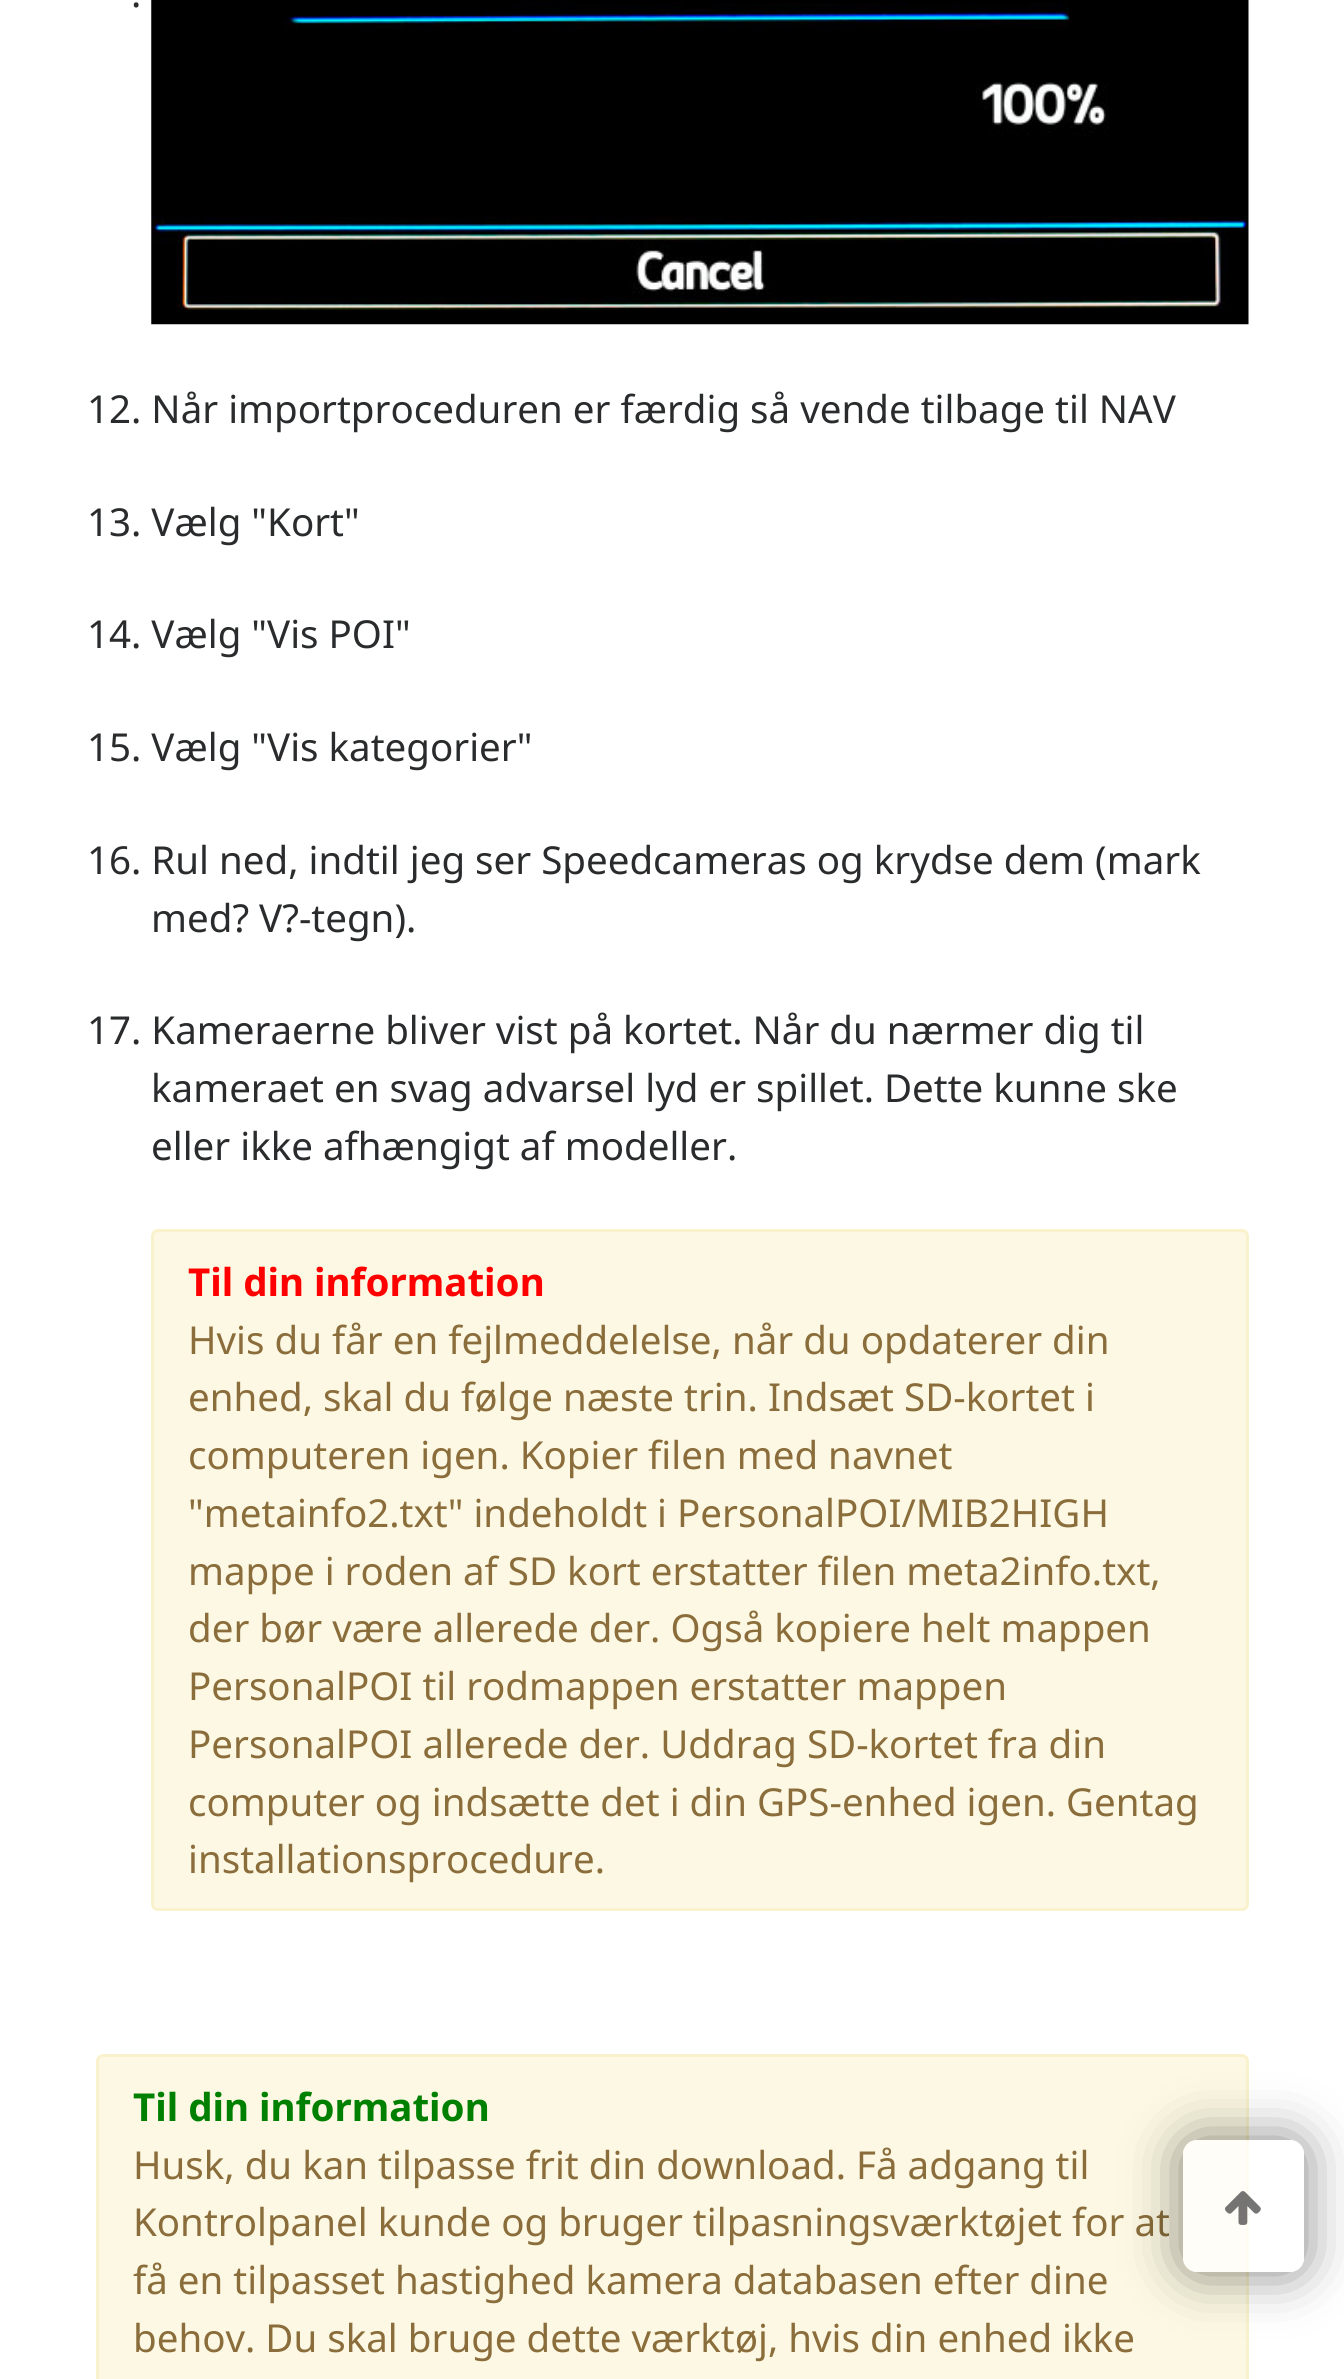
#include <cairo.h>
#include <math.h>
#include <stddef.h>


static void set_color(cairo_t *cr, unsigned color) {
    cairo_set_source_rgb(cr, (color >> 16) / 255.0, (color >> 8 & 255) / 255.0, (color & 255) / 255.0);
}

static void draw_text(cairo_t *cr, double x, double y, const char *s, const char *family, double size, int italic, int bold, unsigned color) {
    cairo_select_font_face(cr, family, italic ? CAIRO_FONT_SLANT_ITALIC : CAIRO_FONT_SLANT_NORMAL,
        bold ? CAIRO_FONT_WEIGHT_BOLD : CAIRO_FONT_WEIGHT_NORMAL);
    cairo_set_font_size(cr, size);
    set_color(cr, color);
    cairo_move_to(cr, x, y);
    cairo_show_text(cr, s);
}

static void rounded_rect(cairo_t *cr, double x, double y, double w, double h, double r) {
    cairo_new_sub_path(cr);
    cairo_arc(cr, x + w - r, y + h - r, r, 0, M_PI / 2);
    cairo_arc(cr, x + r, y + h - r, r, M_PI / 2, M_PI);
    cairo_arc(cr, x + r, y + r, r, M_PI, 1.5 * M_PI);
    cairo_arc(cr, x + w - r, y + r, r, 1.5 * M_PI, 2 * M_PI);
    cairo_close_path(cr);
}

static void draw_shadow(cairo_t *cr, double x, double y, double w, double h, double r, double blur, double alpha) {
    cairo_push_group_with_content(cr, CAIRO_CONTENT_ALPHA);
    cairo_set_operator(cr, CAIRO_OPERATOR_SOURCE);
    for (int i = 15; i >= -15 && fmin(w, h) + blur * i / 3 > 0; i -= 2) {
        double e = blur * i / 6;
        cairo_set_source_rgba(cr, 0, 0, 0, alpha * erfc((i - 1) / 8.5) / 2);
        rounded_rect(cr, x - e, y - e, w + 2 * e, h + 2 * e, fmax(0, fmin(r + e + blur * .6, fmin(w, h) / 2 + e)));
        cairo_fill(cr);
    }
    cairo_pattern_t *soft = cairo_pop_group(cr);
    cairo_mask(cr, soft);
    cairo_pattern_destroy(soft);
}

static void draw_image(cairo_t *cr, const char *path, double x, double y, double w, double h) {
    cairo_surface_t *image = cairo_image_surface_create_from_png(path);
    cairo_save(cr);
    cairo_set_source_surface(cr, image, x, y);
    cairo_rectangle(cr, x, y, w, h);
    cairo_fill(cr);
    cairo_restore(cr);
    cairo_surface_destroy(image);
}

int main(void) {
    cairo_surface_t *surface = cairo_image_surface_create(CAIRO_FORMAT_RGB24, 1344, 2379);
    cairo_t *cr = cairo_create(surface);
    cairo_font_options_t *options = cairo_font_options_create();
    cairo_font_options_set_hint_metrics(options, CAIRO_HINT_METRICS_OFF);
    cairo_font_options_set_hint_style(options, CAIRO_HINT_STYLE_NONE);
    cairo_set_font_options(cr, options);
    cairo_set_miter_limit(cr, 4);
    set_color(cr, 0xFFFFFF);
    cairo_paint(cr);
    draw_text(cr, 131, 7, ".", "Noto Sans", 38.5, 0, 0, 0x292B2C);
    draw_image(cr, "assets/img1.png", 151, 0, 1098, 325);
    draw_text(cr, 87, 423, "12. Når importproceduren er færdig så vende tilbage til NAV", "Noto Sans", 38.5, 0, 0, 0x292B2C);
    draw_text(cr, 87, 536, "13. Vælg \"Kort\"", "Noto Sans", 38.5, 0, 0, 0x292B2C);
    draw_text(cr, 87, 648, "14. Vælg \"Vis POI\"", "Noto Sans", 38.5, 0, 0, 0x292B2C);
    draw_text(cr, 87, 761, "15. Vælg \"Vis kategorier\"", "Noto Sans", 38.5, 0, 0, 0x292B2C);
    draw_text(cr, 87, 874, "16. Rul ned, indtil jeg ser Speedcameras og krydse dem (mark", "Noto Sans", 38.5, 0, 0, 0x292B2C);
    draw_text(cr, 151, 932, "med? V?-tegn).", "Noto Sans", 38.5, 0, 0, 0x292B2C);
    draw_text(cr, 87, 1044, "17. Kameraerne bliver vist på kortet. Når du nærmer dig til", "Noto Sans", 38.5, 0, 0, 0x292B2C);
    draw_text(cr, 151, 1102, "kameraet en svag advarsel lyd er spillet. Dette kunne ske", "Noto Sans", 38.5, 0, 0, 0x292B2C);
    draw_text(cr, 151, 1160, "eller ikke afhængigt af modeller.", "Noto Sans", 38.5, 0, 0, 0x292B2C);
    set_color(cr, 0xFCF8E3);
    rounded_rect(cr, 152.5, 1230.5, 1095, 679, 5.5);
    cairo_fill_preserve(cr);
    set_color(cr, 0xFAF2CC);
    cairo_set_line_width(cr, 3);
    cairo_stroke(cr);
    draw_text(cr, 188, 1296, "Til din information", "Noto Sans", 38.5, 0, 1, 0xFF0000);
    draw_text(cr, 188, 1354, "Hvis du får en fejlmeddelelse, når du opdaterer din", "Noto Sans", 38.5, 0, 0, 0x8A6D3B);
    draw_text(cr, 188, 1411, "enhed, skal du følge næste trin. Indsæt SD-kortet i", "Noto Sans", 38.5, 0, 0, 0x8A6D3B);
    draw_text(cr, 188, 1469, "computeren igen. Kopier filen med navnet", "Noto Sans", 38.5, 0, 0, 0x8A6D3B);
    draw_text(cr, 188, 1527, "\"metainfo2.txt\" indeholdt i PersonalPOI/MIB2HIGH", "Noto Sans", 38.5, 0, 0, 0x8A6D3B);
    draw_text(cr, 188, 1585, "mappe i roden af SD kort erstatter filen meta2info.txt,", "Noto Sans", 38.5, 0, 0, 0x8A6D3B);
    draw_text(cr, 188, 1642, "der bør være allerede der. Også kopiere helt mappen", "Noto Sans", 38.5, 0, 0, 0x8A6D3B);
    draw_text(cr, 188, 1700, "PersonalPOI til rodmappen erstatter mappen", "Noto Sans", 38.5, 0, 0, 0x8A6D3B);
    draw_text(cr, 188, 1758, "PersonalPOI allerede der. Uddrag SD-kortet fra din", "Noto Sans", 38.5, 0, 0, 0x8A6D3B);
    draw_text(cr, 188, 1816, "computer og indsætte det i din GPS-enhed igen. Gentag", "Noto Sans", 38.5, 0, 0, 0x8A6D3B);
    draw_text(cr, 188, 1873, "installationsprocedure.", "Noto Sans", 38.5, 0, 0, 0x8A6D3B);
    set_color(cr, 0xFCF8E3);
    rounded_rect(cr, 97.5, 2055.5, 1150, 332, 5.5);
    cairo_fill_preserve(cr);
    set_color(cr, 0xFAF2CC);
    cairo_stroke(cr);
    draw_text(cr, 133, 2121, "Til din information", "Noto Sans", 38.5, 0, 1, 0x008000);
    draw_text(cr, 133, 2179, "Husk, du kan tilpasse frit din download. Få adgang til", "Noto Sans", 38.5, 0, 0, 0x8A6D3B);
    draw_text(cr, 133, 2236, "Kontrolpanel kunde og bruger tilpasningsværktøjet for at", "Noto Sans", 38.5, 0, 0, 0x8A6D3B);
    draw_text(cr, 133, 2294, "få en tilpasset hastighed kamera databasen efter dine", "Noto Sans", 38.5, 0, 0, 0x8A6D3B);
    draw_text(cr, 133, 2352, "behov. Du skal bruge dette værktøj, hvis din enhed ikke", "Noto Sans", 38.5, 0, 0, 0x8A6D3B);
    cairo_save(cr);
    cairo_set_fill_rule(cr, CAIRO_FILL_RULE_EVEN_ODD);
    cairo_new_path(cr);
    cairo_move_to(cr, 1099, 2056);
    cairo_line_to(cr, 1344, 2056);
    cairo_line_to(cr, 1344, 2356);
    cairo_line_to(cr, 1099, 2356);
    cairo_close_path(cr);
    cairo_move_to(cr, 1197, 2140);
    cairo_line_to(cr, 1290, 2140);
    cairo_curve_to(cr, 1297.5, 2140, 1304, 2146.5, 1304, 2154);
    cairo_line_to(cr, 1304, 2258);
    cairo_curve_to(cr, 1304, 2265.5, 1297.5, 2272, 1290, 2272);
    cairo_line_to(cr, 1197, 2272);
    cairo_curve_to(cr, 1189.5, 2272, 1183, 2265.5, 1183, 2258);
    cairo_line_to(cr, 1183, 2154);
    cairo_curve_to(cr, 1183, 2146.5, 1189.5, 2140, 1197, 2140);
    cairo_close_path(cr);
    cairo_clip(cr);
    set_color(cr, 0x000000);
    draw_shadow(cr, 1183, 2140, 121, 132, 14, 27.5, 0.49);
    cairo_restore(cr);
    cairo_set_source_rgba(cr, 1, 1, 1, 0.7);
    rounded_rect(cr, 1183, 2140, 121, 132, 14);
    cairo_fill(cr);
    draw_image(cr, "assets/img2.png", 1225, 2191, 36, 34);
    cairo_surface_write_to_png(surface, "output.png");
    cairo_font_options_destroy(options);
    cairo_destroy(cr);
    cairo_surface_destroy(surface);
    return 0;
}
